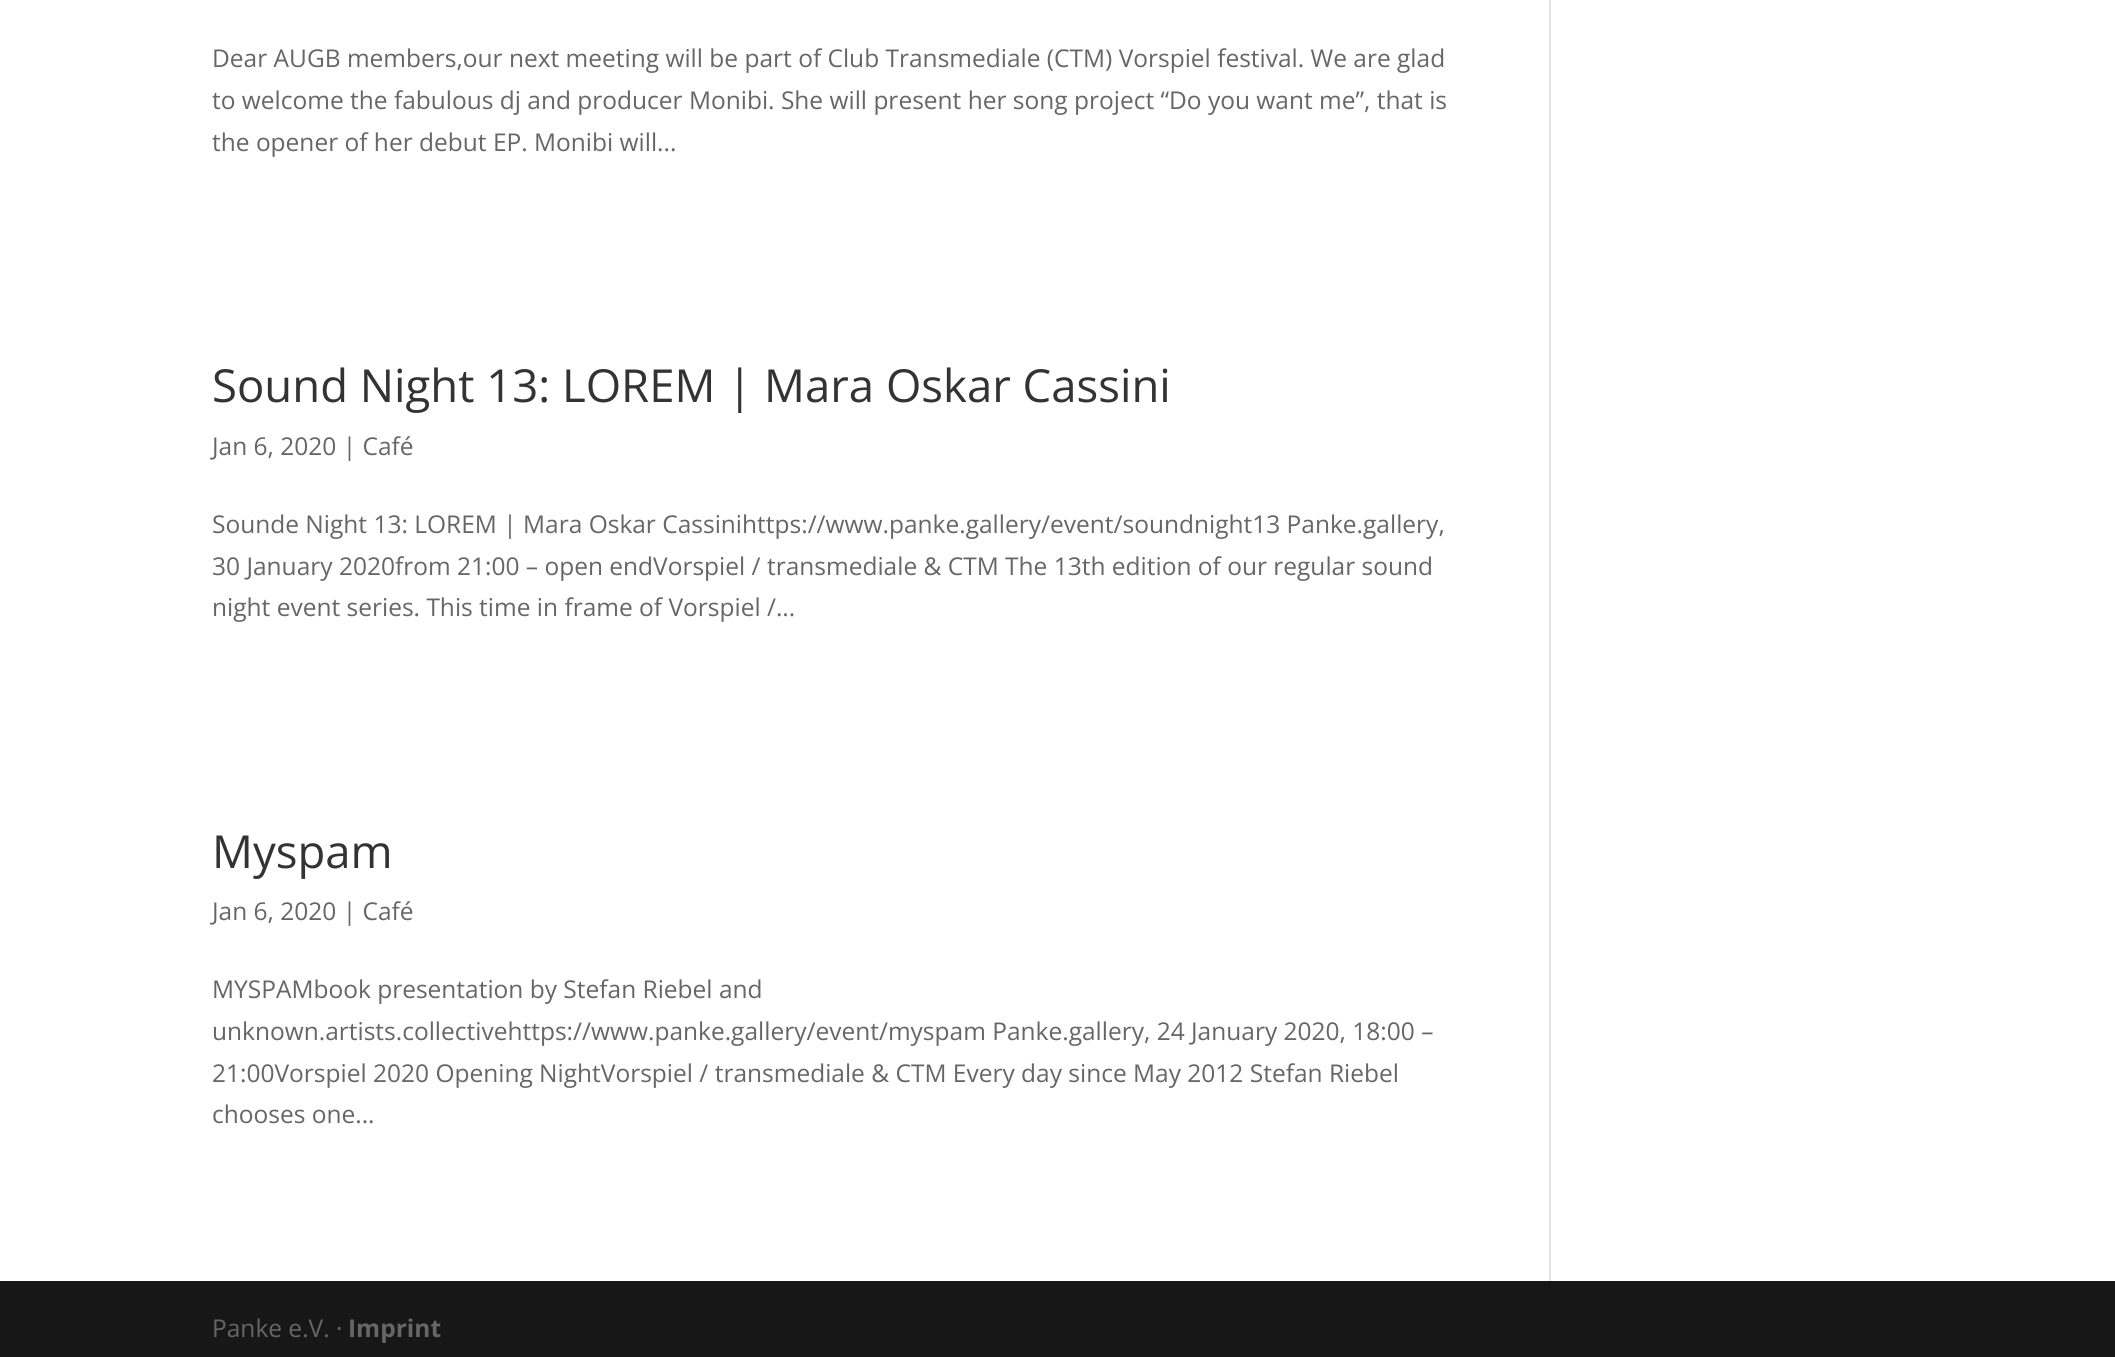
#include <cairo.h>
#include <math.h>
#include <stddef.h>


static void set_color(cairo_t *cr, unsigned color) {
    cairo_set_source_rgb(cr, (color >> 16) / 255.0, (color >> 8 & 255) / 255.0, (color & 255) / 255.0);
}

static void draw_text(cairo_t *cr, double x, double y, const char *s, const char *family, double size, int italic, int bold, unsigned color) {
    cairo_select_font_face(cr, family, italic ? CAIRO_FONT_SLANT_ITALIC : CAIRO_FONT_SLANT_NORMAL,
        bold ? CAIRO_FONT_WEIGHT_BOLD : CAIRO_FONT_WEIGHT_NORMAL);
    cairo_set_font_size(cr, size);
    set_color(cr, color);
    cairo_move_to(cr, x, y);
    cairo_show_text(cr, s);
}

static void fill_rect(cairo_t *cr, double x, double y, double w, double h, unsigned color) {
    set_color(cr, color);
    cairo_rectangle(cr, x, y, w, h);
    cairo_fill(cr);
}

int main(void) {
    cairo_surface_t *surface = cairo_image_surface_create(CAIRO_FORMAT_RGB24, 2115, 1357);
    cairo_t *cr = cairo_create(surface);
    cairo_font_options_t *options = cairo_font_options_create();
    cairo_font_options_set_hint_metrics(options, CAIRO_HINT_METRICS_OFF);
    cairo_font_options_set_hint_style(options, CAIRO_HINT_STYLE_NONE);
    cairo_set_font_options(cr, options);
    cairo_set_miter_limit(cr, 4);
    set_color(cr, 0xFFFFFF);
    cairo_paint(cr);
    draw_text(cr, 212, 67, "Dear AUGB members,our next meeting will be part of Club Transmediale (CTM) Vorspiel festival. We are glad", "Open Sans", 24.5, 0, 0, 0x666666);
    draw_text(cr, 212, 109, "to welcome the fabulous dj and producer Monibi. She will present her song project “Do you want me”, that is", "Open Sans", 24.5, 0, 0, 0x666666);
    draw_text(cr, 212, 151, "the opener of her debut EP. Monibi will...", "Open Sans", 24.5, 0, 0, 0x666666);
    draw_text(cr, 212, 402, "Sound Night 13: LOREM | Mara Oskar Cassini", "Open Sans", 45.5, 0, 0, 0x333333);
    draw_text(cr, 212, 455, "Jan 6, 2020 | Café", "Open Sans", 24.5, 0, 0, 0x666666);
    draw_text(cr, 212, 533, "Sounde Night 13: LOREM | Mara Oskar Cassinihttps://www.panke.gallery/event/soundnight13 Panke.gallery,", "Open Sans", 24.5, 0, 0, 0x666666);
    draw_text(cr, 212, 575, "30 January 2020from 21:00 – open endVorspiel / transmediale & CTM The 13th edition of our regular sound", "Open Sans", 24.5, 0, 0, 0x666666);
    draw_text(cr, 212, 616, "night event series. This time in frame of Vorspiel /...", "Open Sans", 24.5, 0, 0, 0x666666);
    draw_text(cr, 212, 868, "Myspam", "Open Sans", 45.5, 0, 0, 0x333333);
    draw_text(cr, 212, 920, "Jan 6, 2020 | Café", "Open Sans", 24.5, 0, 0, 0x666666);
    draw_text(cr, 212, 998, "MYSPAMbook presentation by Stefan Riebel and", "Open Sans", 24.5, 0, 0, 0x666666);
    draw_text(cr, 212, 1040, "unknown.artists.collectivehttps://www.panke.gallery/event/myspam Panke.gallery, 24 January 2020, 18:00 –", "Open Sans", 24.5, 0, 0, 0x666666);
    draw_text(cr, 212, 1082, "21:00Vorspiel 2020 Opening NightVorspiel / transmediale & CTM Every day since May 2012 Stefan Riebel", "Open Sans", 24.5, 0, 0, 0x666666);
    draw_text(cr, 212, 1123, "chooses one...", "Open Sans", 24.5, 0, 0, 0x666666);
    fill_rect(cr, 1549, 0, 2, 1281, 0xE2E2E2);
    fill_rect(cr, 0, 1281, 2115, 76, 0x171717);
    draw_text(cr, 212, 1337, "Panke e.V. ·", "Open Sans", 24.5, 0, 0, 0x666666);
    draw_text(cr, 348, 1337, "Imprint", "Open Sans", 24.5, 0, 1, 0x666666);
    cairo_surface_write_to_png(surface, "output.png");
    cairo_font_options_destroy(options);
    cairo_destroy(cr);
    cairo_surface_destroy(surface);
    return 0;
}
